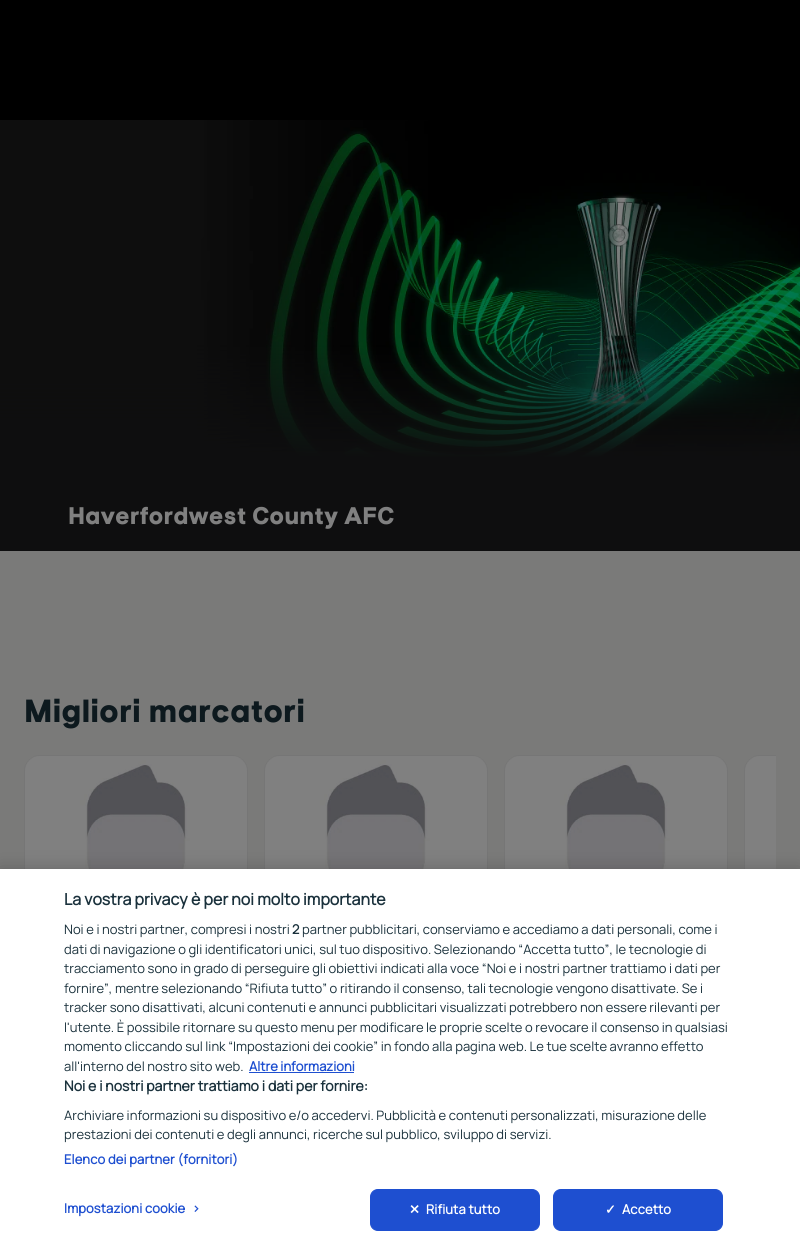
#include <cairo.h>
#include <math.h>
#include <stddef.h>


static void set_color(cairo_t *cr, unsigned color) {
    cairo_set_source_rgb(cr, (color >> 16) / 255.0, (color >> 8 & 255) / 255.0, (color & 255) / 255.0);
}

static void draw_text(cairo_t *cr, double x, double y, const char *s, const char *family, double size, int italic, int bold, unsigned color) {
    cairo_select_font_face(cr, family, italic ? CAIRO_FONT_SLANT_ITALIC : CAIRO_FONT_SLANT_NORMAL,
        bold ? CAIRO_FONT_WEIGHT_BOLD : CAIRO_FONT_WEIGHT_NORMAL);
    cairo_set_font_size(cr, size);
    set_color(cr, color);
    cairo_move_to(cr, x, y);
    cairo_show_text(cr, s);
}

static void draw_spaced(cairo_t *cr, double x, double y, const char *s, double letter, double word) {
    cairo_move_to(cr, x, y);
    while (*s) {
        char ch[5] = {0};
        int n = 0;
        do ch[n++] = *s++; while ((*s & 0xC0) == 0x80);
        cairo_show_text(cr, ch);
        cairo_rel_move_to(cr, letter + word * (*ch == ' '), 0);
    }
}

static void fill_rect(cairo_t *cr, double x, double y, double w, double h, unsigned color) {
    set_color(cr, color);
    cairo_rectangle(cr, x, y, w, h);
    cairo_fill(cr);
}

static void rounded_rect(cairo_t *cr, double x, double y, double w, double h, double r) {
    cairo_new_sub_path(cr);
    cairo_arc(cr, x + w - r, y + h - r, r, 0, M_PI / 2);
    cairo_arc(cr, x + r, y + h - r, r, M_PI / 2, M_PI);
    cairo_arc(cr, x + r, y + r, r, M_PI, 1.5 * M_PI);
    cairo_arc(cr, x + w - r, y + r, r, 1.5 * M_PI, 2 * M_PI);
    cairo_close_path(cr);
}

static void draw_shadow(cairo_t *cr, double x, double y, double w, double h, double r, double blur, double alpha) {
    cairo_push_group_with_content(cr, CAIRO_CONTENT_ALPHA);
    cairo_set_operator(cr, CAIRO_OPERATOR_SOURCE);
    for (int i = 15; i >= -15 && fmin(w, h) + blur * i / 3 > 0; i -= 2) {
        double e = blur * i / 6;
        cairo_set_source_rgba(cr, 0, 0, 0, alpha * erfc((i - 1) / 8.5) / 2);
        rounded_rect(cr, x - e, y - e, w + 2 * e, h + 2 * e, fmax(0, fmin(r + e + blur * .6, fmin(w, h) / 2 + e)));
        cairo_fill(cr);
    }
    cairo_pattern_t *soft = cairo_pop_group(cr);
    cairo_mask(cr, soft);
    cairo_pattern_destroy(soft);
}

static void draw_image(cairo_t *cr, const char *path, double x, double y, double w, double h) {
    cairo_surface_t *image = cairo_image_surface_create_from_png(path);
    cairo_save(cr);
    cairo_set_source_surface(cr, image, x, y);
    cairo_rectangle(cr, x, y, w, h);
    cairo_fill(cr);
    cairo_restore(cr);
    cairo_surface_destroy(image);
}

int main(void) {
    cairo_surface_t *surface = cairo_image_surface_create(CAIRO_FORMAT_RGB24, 800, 1252);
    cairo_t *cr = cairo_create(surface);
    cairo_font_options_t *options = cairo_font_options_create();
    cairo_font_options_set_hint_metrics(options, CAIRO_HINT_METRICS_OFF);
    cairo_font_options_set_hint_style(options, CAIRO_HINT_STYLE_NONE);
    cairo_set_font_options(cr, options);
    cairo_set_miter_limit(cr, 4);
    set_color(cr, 0x7A7A79);
    cairo_paint(cr);
    fill_rect(cr, 0, 0, 800, 120, 0x000000);
    fill_rect(cr, 0, 495, 800, 56, 0x0E0E0F);
    draw_image(cr, "assets/img1.png", 0, 120, 800, 375);
    draw_text(cr, 68, 524, "Haverfordwest County AFC", "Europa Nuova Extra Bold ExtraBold", 24, 0, 0, 0x808080);
    draw_text(cr, 24, 722, "Migliori marcatori", "Europa Nuova Extra Bold ExtraBold", 32, 0, 0, 0x0D191E);
    rounded_rect(cr, 24.5, 755.5, 223, 315, 15.5);
    set_color(cr, 0x767676);
    cairo_set_line_width(cr, 1);
    cairo_stroke(cr);
    draw_image(cr, "assets/img2.png", 25, 756, 222, 113);
    rounded_rect(cr, 264.5, 755.5, 223, 315, 15.5);
    cairo_stroke(cr);
    draw_image(cr, "assets/img3.png", 265, 756, 222, 113);
    rounded_rect(cr, 504.5, 755.5, 223, 315, 15.5);
    cairo_stroke(cr);
    draw_image(cr, "assets/img4.png", 505, 756, 222, 113);
    cairo_save(cr);
    cairo_rectangle(cr, 24, 755, 752, 318);
    cairo_clip(cr);
    rounded_rect(cr, 744.5, 755.5, 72, 315, 15.5);
    cairo_stroke(cr);
    cairo_restore(cr);
    draw_image(cr, "assets/img5.png", 745, 756, 31, 113);
    set_color(cr, 0x000000);
    draw_shadow(cr, 0, 869, 800, 383, 0, 9, 0.2);
    fill_rect(cr, 0, 869, 800, 383, 0xFFFFFF);
    draw_text(cr, 64, 905, "La vostra privacy è per noi molto importante", "Manrope", 16, 0, 1, 0x1A313C);
    draw_text(cr, 64, 934, "Noi e i nostri partner, compresi i nostri", "Manrope", 13, 0, 0, 0x1A313C);
    draw_text(cr, 292, 934, "2", "Manrope", 13, 0, 1, 0x1A313C);
    draw_text(cr, 302, 934, "partner pubblicitari, conserviamo e accediamo a dati personali, come i", "Manrope", 13, 0, 0, 0x1A313C);
    draw_text(cr, 64, 954, "dati di navigazione o gli identificatori unici, sul tuo dispositivo. Selezionando “Accetta tutto”, le tecnologie di", "Manrope", 13, 0, 0, 0x1A313C);
    draw_text(cr, 64, 973, "tracciamento sono in grado di perseguire gli obiettivi indicati alla voce “Noi e i nostri partner trattiamo i dati per", "Manrope", 13, 0, 0, 0x1A313C);
    draw_text(cr, 64, 993, "fornire”, mentre selezionando “Rifiuta tutto” o ritirando il consenso, tali tecnologie vengono disattivate. Se i", "Manrope", 13, 0, 0, 0x1A313C);
    draw_text(cr, 64, 1012, "tracker sono disattivati, alcuni contenuti e annunci pubblicitari visualizzati potrebbero non essere rilevanti per", "Manrope", 13, 0, 0, 0x1A313C);
    draw_text(cr, 64, 1032, "l'utente. È possibile ritornare su questo menu per modificare le proprie scelte o revocare il consenso in qualsiasi", "Manrope", 13, 0, 0, 0x1A313C);
    draw_text(cr, 64, 1051, "momento cliccando sul link “Impostazioni dei cookie” in fondo alla pagina web. Le tue scelte avranno effetto", "Manrope", 13, 0, 0, 0x1A313C);
    draw_text(cr, 64, 1071, "all'interno del nostro sito web.", "Manrope", 13, 0, 0, 0x1A313C);
    draw_text(cr, 249, 1071, "Altre informazioni", "Manrope", 13, 0, 1, 0x1E4FD0);
    fill_rect(cr, 249, 1072, 105, 1, 0x1E4FD0);
    draw_text(cr, 64, 1091, "Noi e i nostri partner trattiamo i dati per fornire:", "Manrope", 14.1, 0, 1, 0x1A313C);
    draw_text(cr, 64, 1120, "Archiviare informazioni su dispositivo e/o accedervi. Pubblicità e contenuti personalizzati, misurazione delle", "Manrope", 13, 0, 0, 0x1A313C);
    draw_text(cr, 64, 1139, "prestazioni dei contenuti e degli annunci, ricerche sul pubblico, sviluppo di servizi.", "Manrope", 13, 0, 0, 0x1A313C);
    cairo_select_font_face(cr, "Manrope", CAIRO_FONT_SLANT_NORMAL, CAIRO_FONT_WEIGHT_BOLD);
    set_color(cr, 0x1E4FD0);
    draw_spaced(cr, 64, 1164, "Elenco dei partner (fornitori)", 0.1, 0);
    draw_spaced(cr, 64, 1213, "Impostazioni cookie", 0.1, 0);
    draw_spaced(cr, 192, 1213, ">", 0.1, 0);
    rounded_rect(cr, 370.5, 1189.5, 169, 41, 7.5);
    cairo_fill_preserve(cr);
    cairo_stroke(cr);
    cairo_select_font_face(cr, "DejaVu Sans", CAIRO_FONT_SLANT_NORMAL, CAIRO_FONT_WEIGHT_BOLD);
    set_color(cr, 0xFFFFFF);
    draw_spaced(cr, 409, 1214, "✕", 0.1, 0);
    cairo_select_font_face(cr, "Manrope", CAIRO_FONT_SLANT_NORMAL, CAIRO_FONT_WEIGHT_BOLD);
    draw_spaced(cr, 426, 1214, "Rifiuta tutto", 0.1, 0);
    set_color(cr, 0x1E4FD0);
    rounded_rect(cr, 553.5, 1189.5, 169, 41, 7.5);
    cairo_fill_preserve(cr);
    cairo_stroke(cr);
    cairo_select_font_face(cr, "DejaVu Sans", CAIRO_FONT_SLANT_NORMAL, CAIRO_FONT_WEIGHT_BOLD);
    set_color(cr, 0xFFFFFF);
    draw_spaced(cr, 605, 1214, "✓", 0.1, 0);
    cairo_select_font_face(cr, "Manrope", CAIRO_FONT_SLANT_NORMAL, CAIRO_FONT_WEIGHT_BOLD);
    draw_spaced(cr, 622, 1214, "Accetto", 0.1, 0);
    cairo_surface_write_to_png(surface, "output.png");
    cairo_font_options_destroy(options);
    cairo_destroy(cr);
    cairo_surface_destroy(surface);
    return 0;
}
